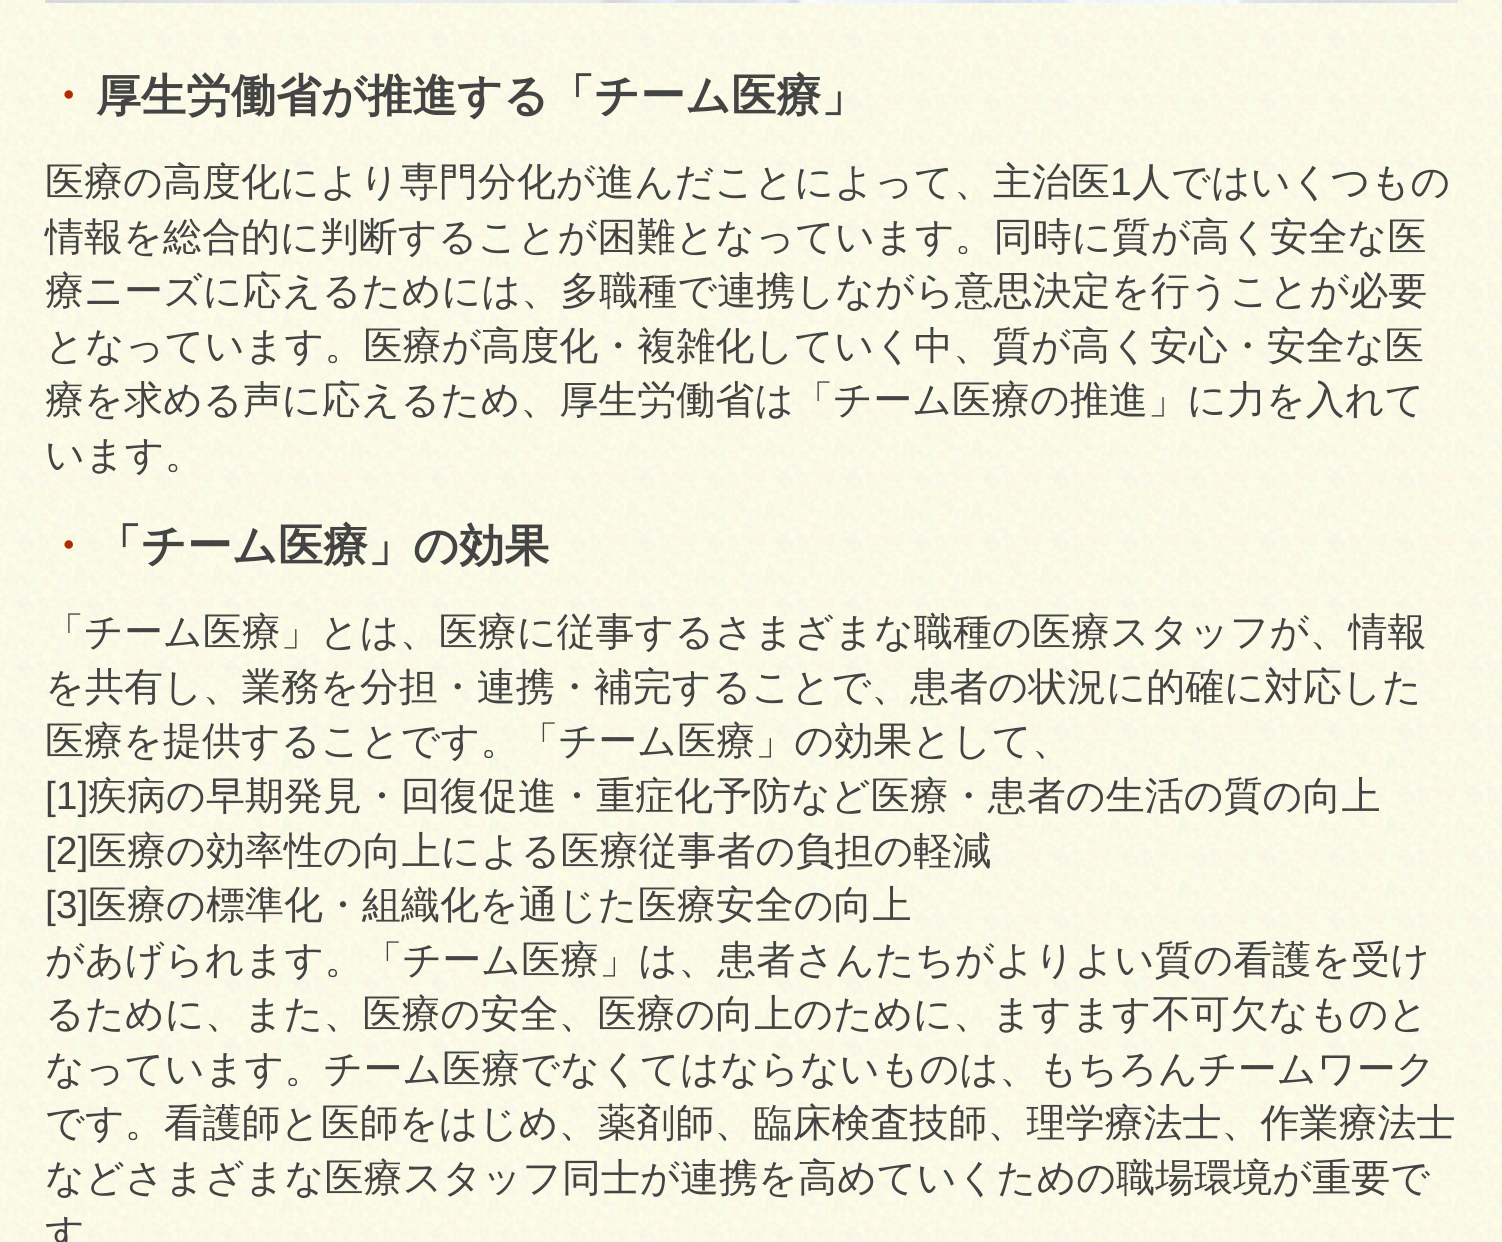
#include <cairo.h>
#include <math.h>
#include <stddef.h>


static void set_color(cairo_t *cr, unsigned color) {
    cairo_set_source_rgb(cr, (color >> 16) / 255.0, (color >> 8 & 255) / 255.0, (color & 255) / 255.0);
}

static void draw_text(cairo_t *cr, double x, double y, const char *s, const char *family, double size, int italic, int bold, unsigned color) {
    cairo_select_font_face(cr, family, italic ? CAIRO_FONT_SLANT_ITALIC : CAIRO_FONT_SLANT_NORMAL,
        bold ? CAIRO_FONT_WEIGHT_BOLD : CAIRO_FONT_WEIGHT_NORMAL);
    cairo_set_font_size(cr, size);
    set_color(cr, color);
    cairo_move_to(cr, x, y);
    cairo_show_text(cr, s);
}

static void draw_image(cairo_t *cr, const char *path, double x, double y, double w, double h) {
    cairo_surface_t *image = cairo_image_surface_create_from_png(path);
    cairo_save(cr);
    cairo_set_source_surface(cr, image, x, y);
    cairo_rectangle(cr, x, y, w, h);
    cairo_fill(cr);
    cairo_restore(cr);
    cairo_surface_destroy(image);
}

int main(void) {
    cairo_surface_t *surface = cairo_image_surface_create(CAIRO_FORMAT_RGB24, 1502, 1242);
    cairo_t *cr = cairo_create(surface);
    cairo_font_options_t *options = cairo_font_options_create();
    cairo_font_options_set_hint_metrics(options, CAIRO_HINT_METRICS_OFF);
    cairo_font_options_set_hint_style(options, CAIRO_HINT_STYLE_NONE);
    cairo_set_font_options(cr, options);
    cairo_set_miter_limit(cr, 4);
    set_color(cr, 0xFFFFFF);
    cairo_paint(cr);
    draw_image(cr, "assets/img1.png", 0, 0, 1502, 1242);
    draw_image(cr, "assets/img2.png", 45, 0, 1413, 3);
    draw_text(cr, 45, 111, "・", "WenQuanYi Zen Hei", 45, 0, 1, 0xAE2C00);
    draw_text(cr, 96, 111, "厚生労働省が推進する「チーム医療」", "WenQuanYi Zen Hei", 45, 0, 1, 0x444444);
    draw_text(cr, 45, 195, "医療の高度化により専門分化が進んだことによって、主治医", "WenQuanYi Zen Hei Medium", 39, 0, 0, 0x444444);
    draw_text(cr, 1110, 195, "1", "Liberation Sans", 39, 0, 0, 0x444444);
    draw_text(cr, 1132, 195, "人ではいくつもの", "WenQuanYi Zen Hei Medium", 39, 0, 0, 0x444444);
    draw_text(cr, 45, 250, "情報を総合的に判断することが困難となっています。同時に質が高く安全な医", "WenQuanYi Zen Hei Medium", 39, 0, 0, 0x444444);
    draw_text(cr, 45, 304, "療ニーズに応えるためには、多職種で連携しながら意思決定を行うことが必要", "WenQuanYi Zen Hei Medium", 39, 0, 0, 0x444444);
    draw_text(cr, 45, 359, "となっています。医療が高度化・複雑化していく中、質が高く安心・安全な医", "WenQuanYi Zen Hei Medium", 39, 0, 0, 0x444444);
    draw_text(cr, 45, 413, "療を求める声に応えるため、厚生労働省は「チーム医療の推進」に力を入れて", "WenQuanYi Zen Hei Medium", 39, 0, 0, 0x444444);
    draw_text(cr, 45, 468, "います。", "WenQuanYi Zen Hei Medium", 39, 0, 0, 0x444444);
    draw_text(cr, 45, 561, "・", "WenQuanYi Zen Hei", 45, 0, 1, 0xAE2C00);
    draw_text(cr, 96, 561, "「チーム医療」の効果", "WenQuanYi Zen Hei", 45, 0, 1, 0x444444);
    draw_text(cr, 45, 645, "「チーム医療」とは、医療に従事するさまざまな職種の医療スタッフが、情報", "WenQuanYi Zen Hei Medium", 39, 0, 0, 0x444444);
    draw_text(cr, 45, 700, "を共有し、業務を分担・連携・補完することで、患者の状況に的確に対応した", "WenQuanYi Zen Hei Medium", 39, 0, 0, 0x444444);
    draw_text(cr, 45, 754, "医療を提供することです。「チーム医療」の効果として、", "WenQuanYi Zen Hei Medium", 39, 0, 0, 0x444444);
    draw_text(cr, 45, 809, "[1]", "Liberation Sans", 39, 0, 0, 0x444444);
    draw_text(cr, 88, 809, "疾病の早期発見・回復促進・重症化予防など医療・患者の生活の質の向上", "WenQuanYi Zen Hei Medium", 39, 0, 0, 0x444444);
    draw_text(cr, 45, 864, "[2]", "Liberation Sans", 39, 0, 0, 0x444444);
    draw_text(cr, 88, 864, "医療の効率性の向上による医療従事者の負担の軽減", "WenQuanYi Zen Hei Medium", 39, 0, 0, 0x444444);
    draw_text(cr, 45, 918, "[3]", "Liberation Sans", 39, 0, 0, 0x444444);
    draw_text(cr, 88, 918, "医療の標準化・組織化を通じた医療安全の向上", "WenQuanYi Zen Hei Medium", 39, 0, 0, 0x444444);
    draw_text(cr, 45, 973, "があげられます。「チーム医療」は、患者さんたちがよりよい質の看護を受け", "WenQuanYi Zen Hei Medium", 39, 0, 0, 0x444444);
    draw_text(cr, 45, 1027, "るために、また、医療の安全、医療の向上のために、ますます不可欠なものと", "WenQuanYi Zen Hei Medium", 39, 0, 0, 0x444444);
    draw_text(cr, 45, 1082, "なっています。チーム医療でなくてはならないものは、もちろんチームワーク", "WenQuanYi Zen Hei Medium", 39, 0, 0, 0x444444);
    draw_text(cr, 45, 1136, "です。看護師と医師をはじめ、薬剤師、臨床検査技師、理学療法士、作業療法士", "WenQuanYi Zen Hei Medium", 39, 0, 0, 0x444444);
    draw_text(cr, 45, 1191, "などさまざまな医療スタッフ同士が連携を高めていくための職場環境が重要で", "WenQuanYi Zen Hei Medium", 39, 0, 0, 0x444444);
    draw_text(cr, 45, 1246, "す", "WenQuanYi Zen Hei Medium", 39, 0, 0, 0x444444);
    cairo_surface_write_to_png(surface, "output.png");
    cairo_font_options_destroy(options);
    cairo_destroy(cr);
    cairo_surface_destroy(surface);
    return 0;
}
